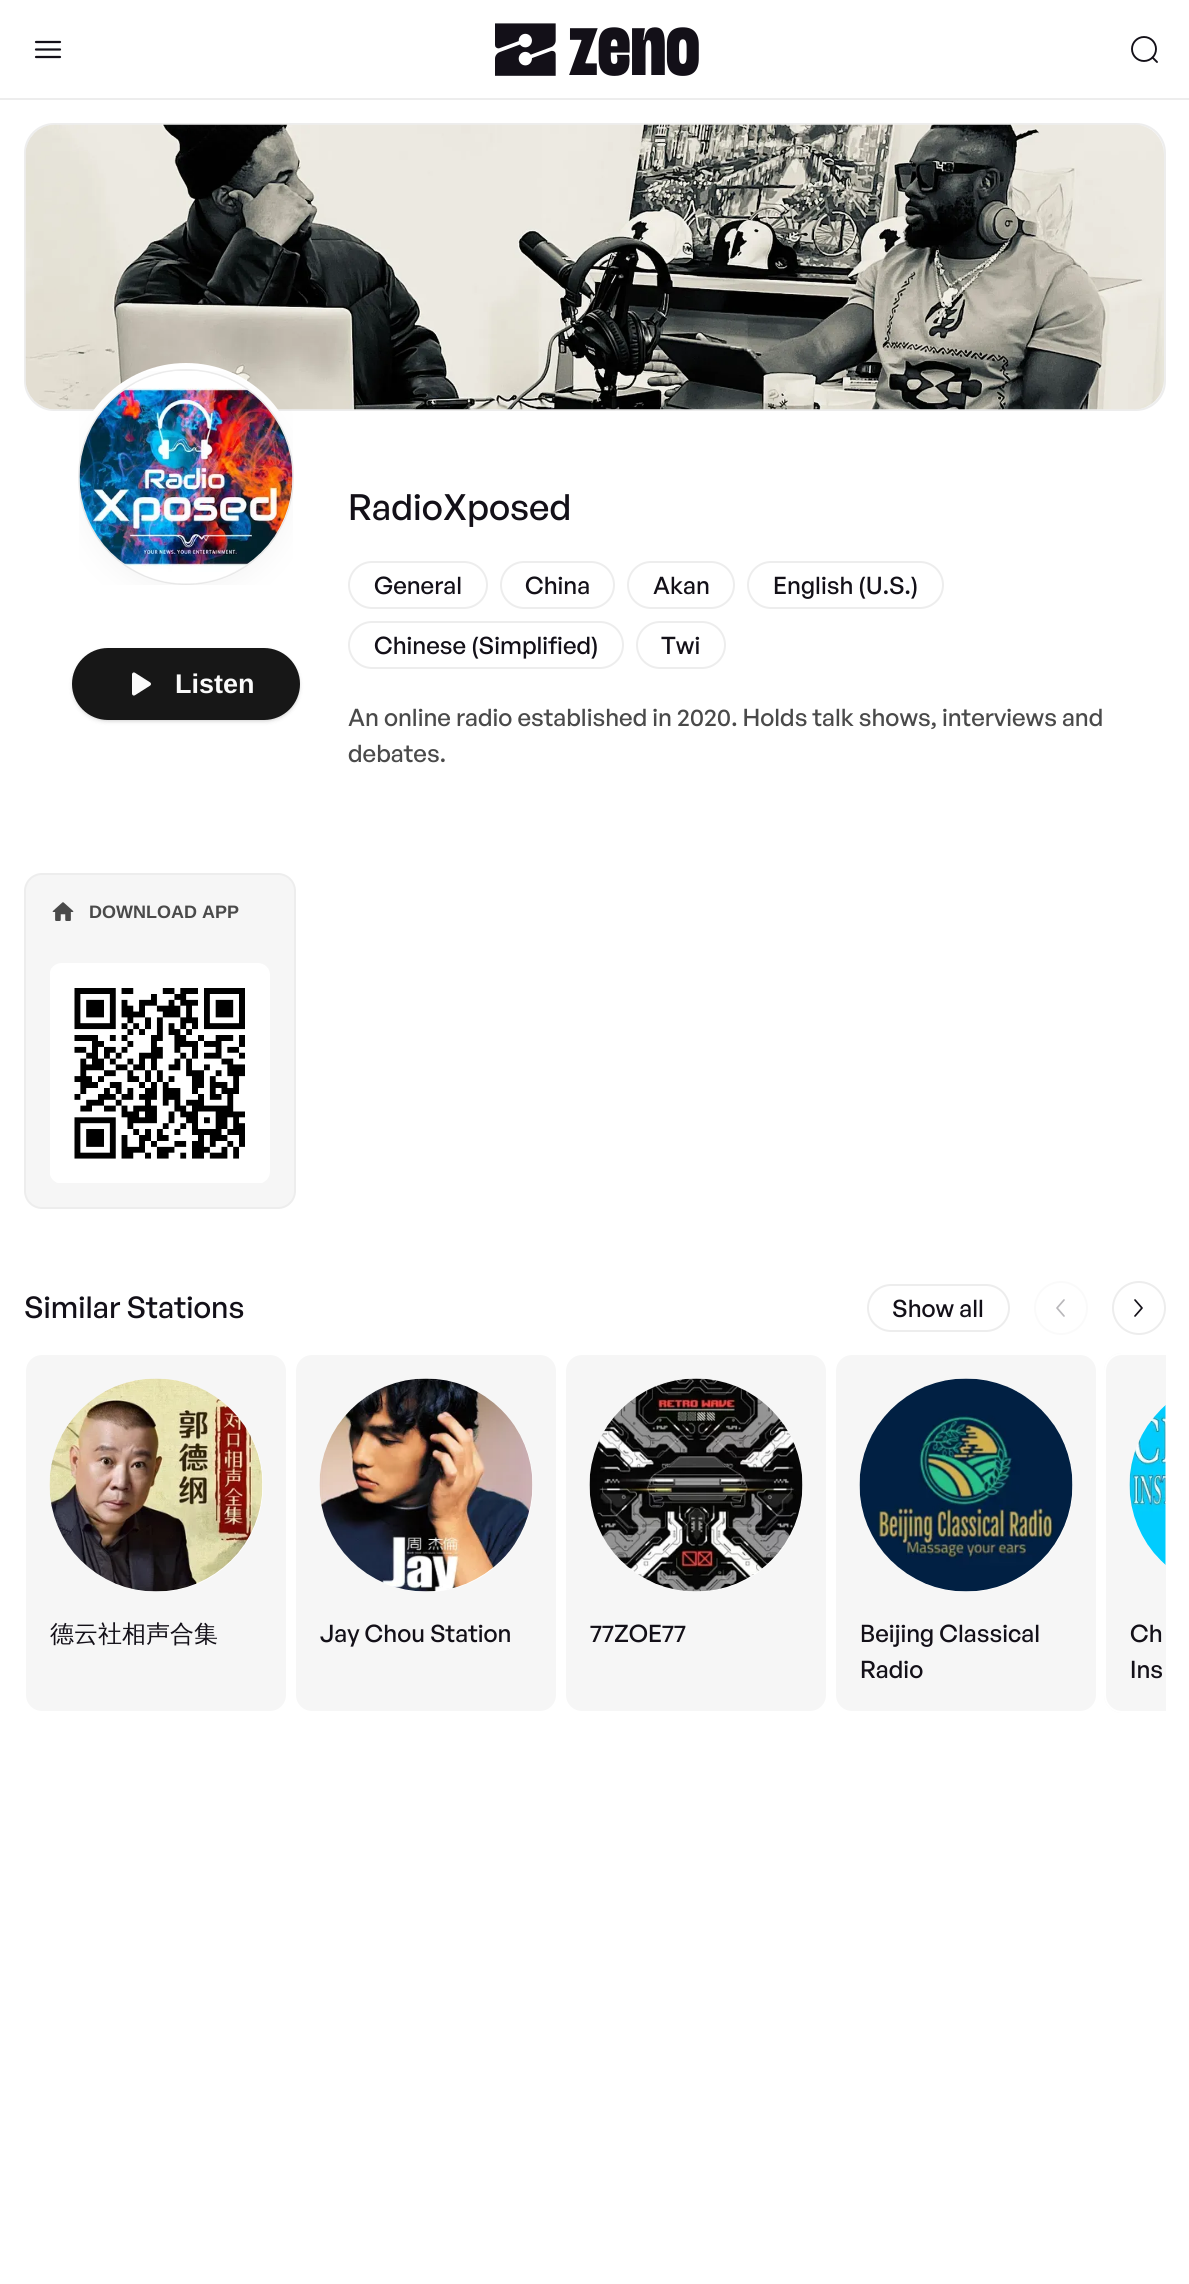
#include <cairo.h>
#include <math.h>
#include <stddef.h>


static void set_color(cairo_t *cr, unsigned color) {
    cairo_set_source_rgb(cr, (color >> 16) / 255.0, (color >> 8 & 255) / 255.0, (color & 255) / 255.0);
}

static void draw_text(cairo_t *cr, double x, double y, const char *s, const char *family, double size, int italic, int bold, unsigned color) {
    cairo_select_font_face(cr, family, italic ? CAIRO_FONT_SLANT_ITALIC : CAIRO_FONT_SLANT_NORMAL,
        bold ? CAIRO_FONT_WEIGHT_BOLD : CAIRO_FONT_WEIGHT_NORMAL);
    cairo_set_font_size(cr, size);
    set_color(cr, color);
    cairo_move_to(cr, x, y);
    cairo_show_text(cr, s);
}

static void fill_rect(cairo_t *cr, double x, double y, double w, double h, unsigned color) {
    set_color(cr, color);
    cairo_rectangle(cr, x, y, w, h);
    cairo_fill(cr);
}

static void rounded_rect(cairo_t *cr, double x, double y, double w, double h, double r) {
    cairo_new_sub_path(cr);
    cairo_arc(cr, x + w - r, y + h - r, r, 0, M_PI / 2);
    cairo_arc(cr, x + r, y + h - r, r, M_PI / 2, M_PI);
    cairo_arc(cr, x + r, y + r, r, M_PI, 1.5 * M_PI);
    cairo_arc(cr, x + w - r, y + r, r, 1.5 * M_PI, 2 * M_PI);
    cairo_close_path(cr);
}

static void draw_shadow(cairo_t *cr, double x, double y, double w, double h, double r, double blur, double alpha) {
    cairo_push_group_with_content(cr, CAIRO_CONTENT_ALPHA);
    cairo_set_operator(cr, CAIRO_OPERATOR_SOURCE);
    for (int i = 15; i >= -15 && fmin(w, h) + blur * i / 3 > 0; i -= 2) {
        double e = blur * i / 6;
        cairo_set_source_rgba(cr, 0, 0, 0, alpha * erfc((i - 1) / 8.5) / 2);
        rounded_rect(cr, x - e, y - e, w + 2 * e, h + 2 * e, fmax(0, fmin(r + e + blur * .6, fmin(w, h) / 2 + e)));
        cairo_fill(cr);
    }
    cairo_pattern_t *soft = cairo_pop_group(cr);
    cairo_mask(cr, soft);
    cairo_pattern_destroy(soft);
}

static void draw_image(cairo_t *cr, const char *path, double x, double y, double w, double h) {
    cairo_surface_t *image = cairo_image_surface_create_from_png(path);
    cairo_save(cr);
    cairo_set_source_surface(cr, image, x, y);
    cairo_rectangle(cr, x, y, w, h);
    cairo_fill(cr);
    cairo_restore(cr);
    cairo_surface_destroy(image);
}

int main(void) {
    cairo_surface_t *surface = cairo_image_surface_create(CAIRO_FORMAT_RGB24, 1189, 2284);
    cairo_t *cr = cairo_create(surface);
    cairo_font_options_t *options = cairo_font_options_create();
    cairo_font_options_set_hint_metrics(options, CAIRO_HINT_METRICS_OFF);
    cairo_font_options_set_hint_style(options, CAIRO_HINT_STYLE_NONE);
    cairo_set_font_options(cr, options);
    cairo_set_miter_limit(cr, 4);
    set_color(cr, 0xFFFFFF);
    cairo_paint(cr);
    fill_rect(cr, 0, 98, 1189, 2, 0xEDEDED);
    cairo_new_path(cr);
    cairo_move_to(cr, 60, 42);
    cairo_line_to(cr, 36, 42);
    cairo_move_to(cr, 60, 49.5);
    cairo_line_to(cr, 36, 49.5);
    cairo_move_to(cr, 60, 57);
    cairo_line_to(cr, 36, 57);
    set_color(cr, 0x131018);
    cairo_set_line_width(cr, 2.2);
    cairo_set_line_cap(cr, CAIRO_LINE_CAP_ROUND);
    cairo_stroke(cr);
    draw_image(cr, "assets/img1.png", 495, 23, 61, 53);
    draw_text(cr, 569, 75, "zeno", "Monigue", 90, 0, 0, 0x131018);
    cairo_new_path(cr);
    cairo_arc(cr, 1144, 49, 12, 0, 2 * M_PI);
    cairo_set_line_width(cr, 1.9);
    cairo_set_line_cap(cr, CAIRO_LINE_CAP_BUTT);
    cairo_stroke(cr);
    cairo_new_path(cr);
    cairo_move_to(cr, 1152.5, 57.5);
    cairo_line_to(cr, 1157, 62);
    cairo_set_line_cap(cr, CAIRO_LINE_CAP_ROUND);
    cairo_stroke(cr);
    set_color(cr, 0xF6F6F6);
    rounded_rect(cr, 25, 124, 1140, 286, 29);
    cairo_fill_preserve(cr);
    set_color(cr, 0xEDEDED);
    cairo_set_line_width(cr, 2);
    cairo_set_line_cap(cr, CAIRO_LINE_CAP_BUTT);
    cairo_stroke(cr);
    draw_image(cr, "assets/img2.png", 25, 124, 1139, 286);
    set_color(cr, 0xFFFFFF);
    cairo_arc(cr, 186, 477, 114, 0, 2 * M_PI);
    cairo_fill(cr);
    cairo_arc(cr, 186, 477, 107, 0, 2 * M_PI);
    set_color(cr, 0xEDEDED);
    cairo_stroke(cr);
    set_color(cr, 0xF6F6F6);
    cairo_arc(cr, 186.5, 477.5, 106.5, 0, 2 * M_PI);
    cairo_fill(cr);
    draw_image(cr, "assets/img3.png", 79, 371, 214, 214);
    set_color(cr, 0x000000);
    draw_shadow(cr, 74, 651, 225, 69, 34.5, 1.5, 0.1);
    draw_shadow(cr, 72, 650, 228, 72, 36, 2, 0.1);
    set_color(cr, 0x171717);
    rounded_rect(cr, 72, 648, 228, 72, 36);
    cairo_fill(cr);
    draw_image(cr, "assets/img4.png", 132, 672, 19, 24);
    draw_text(cr, 175, 693, "Listen", "Liberation Sans", 27, 0, 1, 0xFAFAFA);
    draw_text(cr, 348, 520, "RadioXposed", "General Sans Medium", 36, 0, 0, 0x131018);
    rounded_rect(cr, 349, 562, 138, 46, 23);
    set_color(cr, 0xEDEDED);
    cairo_stroke(cr);
    draw_text(cr, 374, 594, "General", "General Sans Medium", 24, 0, 0, 0x131018);
    rounded_rect(cr, 501, 562, 113, 46, 23);
    set_color(cr, 0xEDEDED);
    cairo_stroke(cr);
    draw_text(cr, 525, 594, "China", "General Sans Medium", 24, 0, 0, 0x131018);
    rounded_rect(cr, 628, 562, 106, 46, 23);
    set_color(cr, 0xEDEDED);
    cairo_stroke(cr);
    draw_text(cr, 653, 594, "Akan", "General Sans Medium", 24, 0, 0, 0x131018);
    rounded_rect(cr, 748, 562, 195, 46, 23);
    set_color(cr, 0xEDEDED);
    cairo_stroke(cr);
    draw_text(cr, 773, 594, "English (U.S.)", "General Sans Medium", 24, 0, 0, 0x131018);
    rounded_rect(cr, 349, 622, 274, 46, 23);
    set_color(cr, 0xEDEDED);
    cairo_stroke(cr);
    draw_text(cr, 374, 654, "Chinese (Simplified)", "General Sans Medium", 24, 0, 0, 0x131018);
    rounded_rect(cr, 637, 622, 88, 46, 23);
    set_color(cr, 0xEDEDED);
    cairo_stroke(cr);
    draw_text(cr, 661, 654, "Twi", "General Sans Medium", 24, 0, 0, 0x131018);
    draw_text(cr, 348, 726, "An online radio established in 2020. Holds talk shows, interviews and", "General Sans Medium", 24, 0, 0, 0x4A4A4A);
    draw_text(cr, 348, 762, "debates.", "General Sans Medium", 24, 0, 0, 0x4A4A4A);
    set_color(cr, 0xF6F6F6);
    rounded_rect(cr, 25, 874, 270, 334, 17);
    cairo_fill_preserve(cr);
    set_color(cr, 0xEDEDED);
    cairo_stroke(cr);
    draw_image(cr, "assets/img5.png", 52, 902, 22, 19);
    draw_text(cr, 89, 918, "DOWNLOAD APP", "Liberation Sans", 18, 0, 1, 0x4A4A4A);
    draw_image(cr, "assets/img6.png", 50, 963, 220, 220);
    draw_text(cr, 24, 1318, "Similar Stations", "General Sans Medium", 30, 0, 0, 0x131018);
    rounded_rect(cr, 868, 1285, 141, 46, 23);
    set_color(cr, 0xEDEDED);
    cairo_stroke(cr);
    draw_text(cr, 892, 1317, "Show all", "General Sans Medium", 24, 0, 0, 0x131018);
    cairo_new_path(cr);
    cairo_arc(cr, 1061, 1308, 26, 0, 2 * M_PI);
    set_color(cr, 0xFAFAFA);
    cairo_stroke(cr);
    cairo_new_path(cr);
    cairo_move_to(cr, 1064, 1300);
    cairo_line_to(cr, 1057, 1308);
    cairo_line_to(cr, 1064, 1316);
    set_color(cr, 0xB8B7BA);
    cairo_set_line_width(cr, 1.7);
    cairo_set_line_cap(cr, CAIRO_LINE_CAP_ROUND);
    cairo_set_line_join(cr, CAIRO_LINE_JOIN_ROUND);
    cairo_stroke(cr);
    cairo_arc(cr, 1139, 1308, 26, 0, 2 * M_PI);
    set_color(cr, 0xEDEDED);
    cairo_set_line_width(cr, 2);
    cairo_set_line_cap(cr, CAIRO_LINE_CAP_BUTT);
    cairo_set_line_join(cr, CAIRO_LINE_JOIN_MITER);
    cairo_stroke(cr);
    cairo_new_path(cr);
    cairo_move_to(cr, 1135, 1300);
    cairo_line_to(cr, 1142, 1308);
    cairo_line_to(cr, 1135, 1316);
    set_color(cr, 0x131018);
    cairo_set_line_width(cr, 1.7);
    cairo_set_line_cap(cr, CAIRO_LINE_CAP_ROUND);
    cairo_set_line_join(cr, CAIRO_LINE_JOIN_ROUND);
    cairo_stroke(cr);
    set_color(cr, 0xF6F6F6);
    rounded_rect(cr, 25, 1354, 262, 358, 17);
    cairo_fill_preserve(cr);
    set_color(cr, 0xFFFFFF);
    cairo_set_line_width(cr, 2);
    cairo_set_line_cap(cr, CAIRO_LINE_CAP_BUTT);
    cairo_set_line_join(cr, CAIRO_LINE_JOIN_MITER);
    cairo_stroke(cr);
    cairo_arc(cr, 156.5, 1485.5, 106.5, 0, 2 * M_PI);
    cairo_fill(cr);
    draw_image(cr, "assets/img7.png", 49, 1378, 214, 214);
    draw_text(cr, 50, 1642, "德云社相声合集", "WenQuanYi Zen Hei Medium", 24, 0, 0, 0x131018);
    set_color(cr, 0xF6F6F6);
    rounded_rect(cr, 295, 1354, 262, 358, 17);
    cairo_fill_preserve(cr);
    set_color(cr, 0xFFFFFF);
    cairo_stroke(cr);
    cairo_arc(cr, 426.5, 1485.5, 106.5, 0, 2 * M_PI);
    cairo_fill(cr);
    draw_image(cr, "assets/img8.png", 319, 1378, 214, 214);
    draw_text(cr, 320, 1642, "Jay Chou Station", "General Sans Medium", 24, 0, 0, 0x131018);
    set_color(cr, 0xF6F6F6);
    rounded_rect(cr, 565, 1354, 262, 358, 17);
    cairo_fill_preserve(cr);
    set_color(cr, 0xFFFFFF);
    cairo_stroke(cr);
    cairo_arc(cr, 696.5, 1485.5, 106.5, 0, 2 * M_PI);
    cairo_fill(cr);
    draw_image(cr, "assets/img9.png", 589, 1378, 214, 214);
    draw_text(cr, 590, 1642, "77ZOE77", "General Sans Medium", 24, 0, 0, 0x131018);
    set_color(cr, 0xF6F6F6);
    rounded_rect(cr, 835, 1354, 262, 358, 17);
    cairo_fill_preserve(cr);
    set_color(cr, 0xFFFFFF);
    cairo_stroke(cr);
    cairo_arc(cr, 966.5, 1485.5, 106.5, 0, 2 * M_PI);
    cairo_fill(cr);
    draw_image(cr, "assets/img10.png", 859, 1378, 214, 214);
    draw_text(cr, 860, 1642, "Beijing Classical", "General Sans Medium", 24, 0, 0, 0x131018);
    draw_text(cr, 860, 1678, "Radio", "General Sans Medium", 24, 0, 0, 0x131018);
    set_color(cr, 0xF6F6F6);
    cairo_new_path(cr);
    cairo_move_to(cr, 1122, 1353);
    cairo_line_to(cr, 1166, 1353);
    cairo_line_to(cr, 1166, 1713);
    cairo_line_to(cr, 1122, 1713);
    cairo_curve_to(cr, 1112, 1713, 1104, 1705, 1104, 1695);
    cairo_line_to(cr, 1104, 1371);
    cairo_curve_to(cr, 1104, 1361, 1112, 1353, 1122, 1353);
    cairo_close_path(cr);
    cairo_fill(cr);
    cairo_save(cr);
    cairo_rectangle(cr, 24, 1353, 1142, 360);
    cairo_clip(cr);
    rounded_rect(cr, 1105, 1354, 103, 358, 17);
    set_color(cr, 0xFFFFFF);
    cairo_stroke(cr);
    cairo_restore(cr);
    set_color(cr, 0xFFFFFF);
    cairo_new_path(cr);
    cairo_move_to(cr, 1236.5, 1379);
    cairo_line_to(cr, 1166, 1379);
    cairo_line_to(cr, 1166, 1592);
    cairo_line_to(cr, 1236.5, 1592);
    cairo_curve_to(cr, 1177.5, 1592, 1130, 1544.5, 1130, 1485.5);
    cairo_curve_to(cr, 1130, 1426.5, 1177.5, 1379, 1236.5, 1379);
    cairo_close_path(cr);
    cairo_fill(cr);
    draw_image(cr, "assets/img11.png", 1129, 1405, 37, 160);
    draw_text(cr, 1130, 1642, "Ch", "General Sans Medium", 24, 0, 0, 0x131018);
    draw_text(cr, 1130, 1678, "Ins", "General Sans Medium", 24, 0, 0, 0x131018);
    cairo_surface_write_to_png(surface, "output.png");
    cairo_font_options_destroy(options);
    cairo_destroy(cr);
    cairo_surface_destroy(surface);
    return 0;
}
